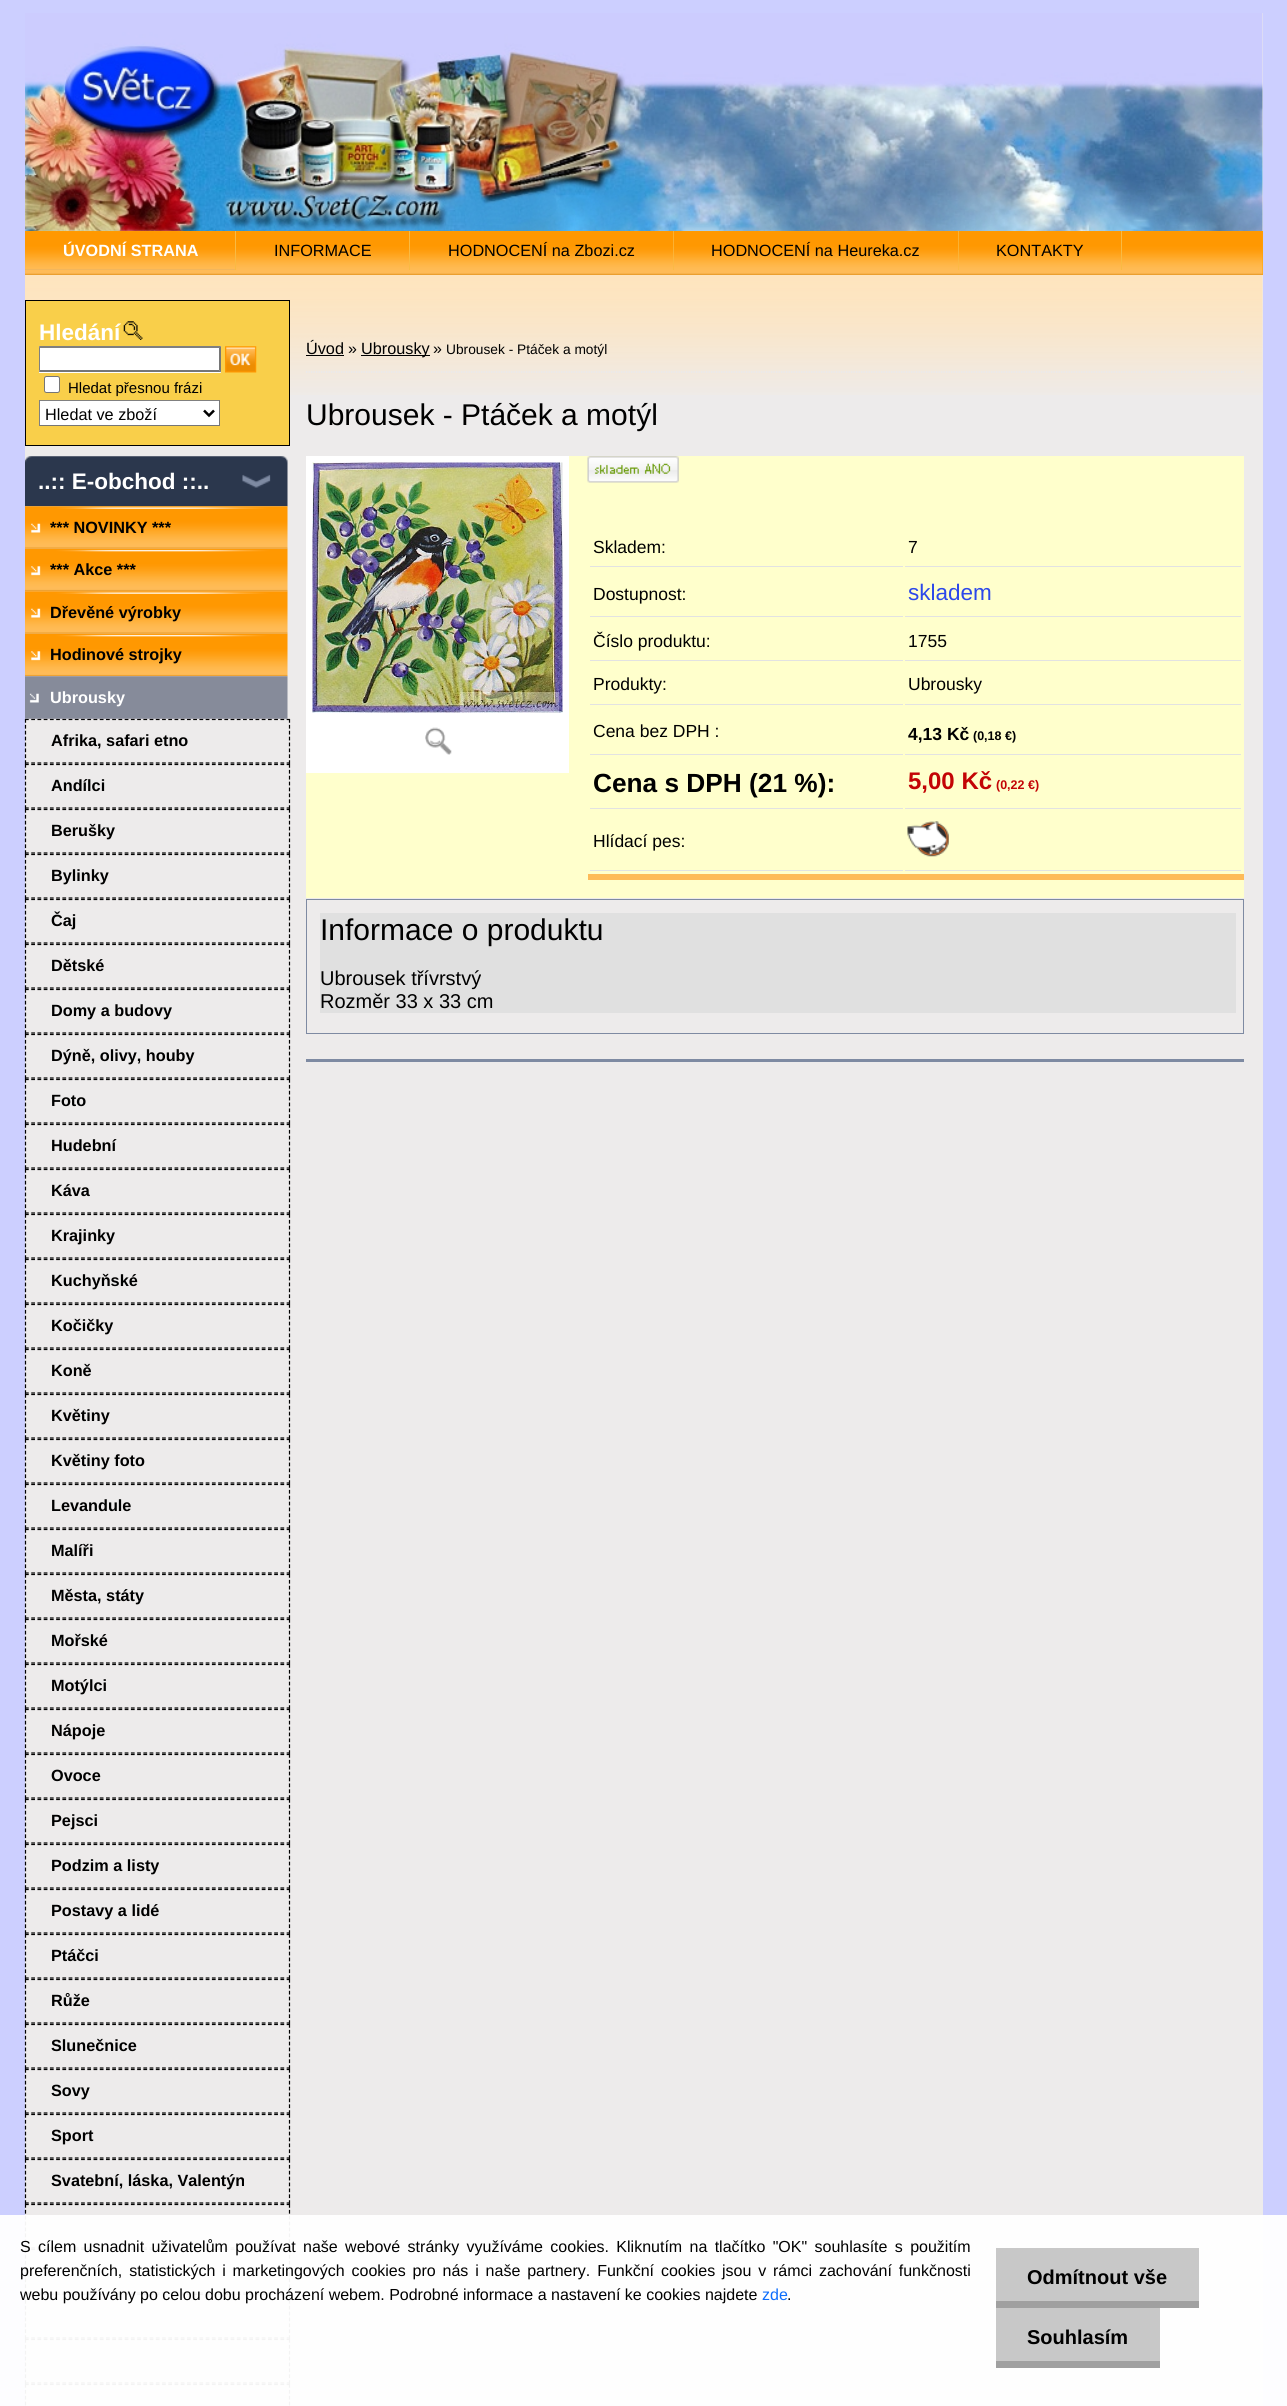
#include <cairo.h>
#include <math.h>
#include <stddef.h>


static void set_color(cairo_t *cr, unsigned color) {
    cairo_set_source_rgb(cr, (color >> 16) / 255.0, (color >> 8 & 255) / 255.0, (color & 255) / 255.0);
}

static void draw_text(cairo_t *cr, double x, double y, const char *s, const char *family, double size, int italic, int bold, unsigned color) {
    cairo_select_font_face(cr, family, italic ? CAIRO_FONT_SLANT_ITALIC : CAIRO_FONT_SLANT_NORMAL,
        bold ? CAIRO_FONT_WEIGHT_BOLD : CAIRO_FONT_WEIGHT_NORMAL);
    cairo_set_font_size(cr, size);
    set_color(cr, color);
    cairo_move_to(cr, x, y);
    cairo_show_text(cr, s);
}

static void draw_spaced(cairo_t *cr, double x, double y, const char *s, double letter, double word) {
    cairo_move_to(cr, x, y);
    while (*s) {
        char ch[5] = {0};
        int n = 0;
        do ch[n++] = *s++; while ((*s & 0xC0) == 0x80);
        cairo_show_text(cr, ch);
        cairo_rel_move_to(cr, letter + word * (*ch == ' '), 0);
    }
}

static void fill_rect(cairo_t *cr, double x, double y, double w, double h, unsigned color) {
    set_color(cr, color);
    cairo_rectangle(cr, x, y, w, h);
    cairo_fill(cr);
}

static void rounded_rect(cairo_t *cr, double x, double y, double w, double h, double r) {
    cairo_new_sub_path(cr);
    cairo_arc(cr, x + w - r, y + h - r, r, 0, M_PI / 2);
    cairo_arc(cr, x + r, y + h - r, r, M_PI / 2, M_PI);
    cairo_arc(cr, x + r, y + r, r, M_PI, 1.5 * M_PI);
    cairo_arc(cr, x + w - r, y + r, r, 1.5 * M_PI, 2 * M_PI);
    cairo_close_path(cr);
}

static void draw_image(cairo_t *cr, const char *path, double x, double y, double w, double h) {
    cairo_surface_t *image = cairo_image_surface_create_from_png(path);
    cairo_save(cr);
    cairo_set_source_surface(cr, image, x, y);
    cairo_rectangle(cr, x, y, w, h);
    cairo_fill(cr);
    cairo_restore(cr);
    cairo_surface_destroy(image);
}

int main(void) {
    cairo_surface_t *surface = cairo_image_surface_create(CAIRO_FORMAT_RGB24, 1287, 2406);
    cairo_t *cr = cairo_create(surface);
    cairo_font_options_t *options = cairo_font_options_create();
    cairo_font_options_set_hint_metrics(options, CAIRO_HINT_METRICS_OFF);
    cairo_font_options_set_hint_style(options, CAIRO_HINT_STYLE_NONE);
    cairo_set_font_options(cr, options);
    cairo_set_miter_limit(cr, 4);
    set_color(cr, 0xCCCFFF);
    cairo_paint(cr);
    fill_rect(cr, 25, 13, 1238, 2393, 0xEDEBEB);
    draw_image(cr, "assets/img1.png", 25, 13, 1238, 218);
    fill_rect(cr, 25, 231, 1238, 44, 0xFFA500);
    draw_image(cr, "assets/img2.png", 25, 231, 1238, 44);
    fill_rect(cr, 25, 269, 211, 1, 0xF2B65C);
    fill_rect(cr, 235, 231, 1, 39, 0xF9BA43);
    draw_text(cr, 63, 256, "ÚVODNÍ STRANA", "Liberation Sans", 16.25, 0, 1, 0xFFFFFF);
    fill_rect(cr, 409, 231, 1, 39, 0xF9BA43);
    draw_text(cr, 274, 256, "INFORMACE", "Liberation Sans", 16.25, 0, 0, 0x000000);
    fill_rect(cr, 673, 231, 1, 39, 0xF9BA43);
    draw_text(cr, 448, 256, "HODNOCENÍ na Zbozi.cz", "Liberation Sans", 16.25, 0, 0, 0x000000);
    draw_image(cr, "assets/img3.png", 673, 231, 1, 39);
    fill_rect(cr, 958, 231, 1, 39, 0xF9BA43);
    draw_text(cr, 711, 256, "HODNOCENÍ na Heureka.cz", "Liberation Sans", 16.25, 0, 0, 0x000000);
    draw_image(cr, "assets/img3.png", 958, 231, 1, 39);
    fill_rect(cr, 1121, 231, 1, 39, 0xF9BA43);
    draw_text(cr, 996, 256, "KONTAKTY", "Liberation Sans", 16.25, 0, 0, 0x000000);
    draw_image(cr, "assets/img4.png", 25, 275, 1238, 120);
    set_color(cr, 0xF9CF4A);
    cairo_rectangle(cr, 25.5, 300.5, 264, 145);
    cairo_fill_preserve(cr);
    set_color(cr, 0x000000);
    cairo_set_line_width(cr, 1);
    cairo_stroke(cr);
    draw_text(cr, 39, 340, "Hledání", "Liberation Sans", 22.5, 0, 1, 0xFFFFFF);
    draw_image(cr, "assets/img5.png", 123, 321, 20, 19);
    fill_rect(cr, 39, 346, 182, 27, 0xFFFFFF);
    set_color(cr, 0x808080);
    cairo_new_path(cr);
    cairo_move_to(cr, 39, 346);
    cairo_line_to(cr, 221, 346);
    cairo_line_to(cr, 219, 348);
    cairo_line_to(cr, 40, 348);
    cairo_close_path(cr);
    cairo_fill(cr);
    set_color(cr, 0x767676);
    cairo_new_path(cr);
    cairo_move_to(cr, 221, 346);
    cairo_line_to(cr, 221, 372.5);
    cairo_line_to(cr, 219, 370);
    cairo_line_to(cr, 219, 347.5);
    cairo_close_path(cr);
    cairo_fill(cr);
    cairo_new_path(cr);
    cairo_move_to(cr, 221, 372);
    cairo_line_to(cr, 39, 372);
    cairo_line_to(cr, 40, 370);
    cairo_line_to(cr, 219, 370);
    cairo_close_path(cr);
    cairo_fill(cr);
    set_color(cr, 0x808080);
    cairo_new_path(cr);
    cairo_move_to(cr, 39, 372.5);
    cairo_line_to(cr, 39, 346);
    cairo_line_to(cr, 40, 347.5);
    cairo_line_to(cr, 40, 370);
    cairo_close_path(cr);
    cairo_fill(cr);
    draw_image(cr, "assets/img6.png", 225, 346, 32, 27);
    set_color(cr, 0xFFFFFF);
    rounded_rect(cr, 44.5, 376.5, 15, 16, 2);
    cairo_fill_preserve(cr);
    set_color(cr, 0x767676);
    cairo_stroke(cr);
    draw_text(cr, 68, 393, "Hledat přesnou frázi", "Liberation Sans", 15, 0, 0, 0x000000);
    fill_rect(cr, 40, 401, 179, 24, 0xFFFFFF);
    fill_rect(cr, 39, 400, 181, 1, 0x808080);
    fill_rect(cr, 219, 400, 1, 26, 0x767676);
    fill_rect(cr, 39, 425, 181, 1, 0x767676);
    fill_rect(cr, 39, 400, 1, 26, 0x808080);
    cairo_new_path(cr);
    cairo_move_to(cr, 204, 410.5);
    cairo_line_to(cr, 209, 415.5);
    cairo_line_to(cr, 214, 410.5);
    set_color(cr, 0x000000);
    cairo_set_line_width(cr, 2.5);
    cairo_stroke(cr);
    draw_text(cr, 45, 420, "Hledat ve zboží", "Liberation Sans", 16.25, 0, 0, 0x000000);
    draw_image(cr, "assets/img7.png", 25, 456, 263, 51);
    draw_text(cr, 38, 489, "..:: E-obchod ::..", "Liberation Sans", 22.5, 0, 1, 0xFFFFFF);
    draw_image(cr, "assets/img8.png", 25, 506, 263, 43);
    draw_text(cr, 50, 533, "*** NOVINKY ***", "Liberation Sans", 16.25, 0, 1, 0x000000);
    draw_image(cr, "assets/img9.png", 25, 548, 263, 44);
    draw_text(cr, 50, 575, "*** Akce ***", "Liberation Sans", 16.25, 0, 1, 0x000000);
    draw_image(cr, "assets/img10.png", 25, 591, 263, 43);
    draw_text(cr, 50, 618, "Dřevěné výrobky", "Liberation Sans", 16.25, 0, 1, 0x000000);
    draw_image(cr, "assets/img9.png", 25, 633, 263, 44);
    draw_text(cr, 50, 660, "Hodinové strojky", "Liberation Sans", 16.25, 0, 1, 0x000000);
    draw_image(cr, "assets/img11.png", 25, 676, 263, 43);
    draw_text(cr, 50, 703, "Ubrousky", "Liberation Sans", 16.25, 0, 1, 0xFFFFFF);
    cairo_new_path(cr);
    cairo_move_to(cr, 25, 719.5);
    cairo_line_to(cr, 290, 719.5);
    set_color(cr, 0x000000);
    cairo_set_line_width(cr, 1.2);
    cairo_set_dash(cr, (double[]){3.75, 2.48}, 2, 0);
    cairo_stroke(cr);
    cairo_new_path(cr);
    cairo_move_to(cr, 289.5, 719);
    cairo_line_to(cr, 289.5, 764);
    cairo_set_dash(cr, (double[]){3.75, 2.14}, 2, 0);
    cairo_stroke(cr);
    cairo_new_path(cr);
    cairo_move_to(cr, 25, 763);
    cairo_line_to(cr, 290, 763);
    cairo_set_dash(cr, (double[]){3.75, 2.48}, 2, 0);
    cairo_stroke(cr);
    cairo_new_path(cr);
    cairo_move_to(cr, 25.5, 719);
    cairo_line_to(cr, 25.5, 764);
    cairo_set_dash(cr, (double[]){3.75, 2.14}, 2, 0);
    cairo_stroke(cr);
    draw_text(cr, 51, 746, "Afrika, safari etno", "Liberation Sans", 16.25, 0, 1, 0x000000);
    cairo_new_path(cr);
    cairo_move_to(cr, 25, 764.5);
    cairo_line_to(cr, 290, 764.5);
    cairo_set_dash(cr, (double[]){3.75, 2.48}, 2, 0);
    cairo_stroke(cr);
    cairo_new_path(cr);
    cairo_move_to(cr, 289.5, 764);
    cairo_line_to(cr, 289.5, 809);
    cairo_set_dash(cr, (double[]){3.75, 2.14}, 2, 0);
    cairo_stroke(cr);
    cairo_new_path(cr);
    cairo_move_to(cr, 25, 808);
    cairo_line_to(cr, 290, 808);
    cairo_set_dash(cr, (double[]){3.75, 2.48}, 2, 0);
    cairo_stroke(cr);
    cairo_new_path(cr);
    cairo_move_to(cr, 25.5, 764);
    cairo_line_to(cr, 25.5, 809);
    cairo_set_dash(cr, (double[]){3.75, 2.14}, 2, 0);
    cairo_stroke(cr);
    draw_text(cr, 51, 791, "Andílci", "Liberation Sans", 16.25, 0, 1, 0x000000);
    cairo_new_path(cr);
    cairo_move_to(cr, 25, 809.5);
    cairo_line_to(cr, 290, 809.5);
    cairo_set_dash(cr, (double[]){3.75, 2.48}, 2, 0);
    cairo_stroke(cr);
    cairo_new_path(cr);
    cairo_move_to(cr, 289.5, 809);
    cairo_line_to(cr, 289.5, 854);
    cairo_set_dash(cr, (double[]){3.75, 2.14}, 2, 0);
    cairo_stroke(cr);
    cairo_new_path(cr);
    cairo_move_to(cr, 25, 853);
    cairo_line_to(cr, 290, 853);
    cairo_set_dash(cr, (double[]){3.75, 2.48}, 2, 0);
    cairo_stroke(cr);
    cairo_new_path(cr);
    cairo_move_to(cr, 25.5, 809);
    cairo_line_to(cr, 25.5, 854);
    cairo_set_dash(cr, (double[]){3.75, 2.14}, 2, 0);
    cairo_stroke(cr);
    draw_text(cr, 51, 836, "Berušky", "Liberation Sans", 16.25, 0, 1, 0x000000);
    cairo_new_path(cr);
    cairo_move_to(cr, 25, 854.5);
    cairo_line_to(cr, 290, 854.5);
    cairo_set_dash(cr, (double[]){3.75, 2.48}, 2, 0);
    cairo_stroke(cr);
    cairo_new_path(cr);
    cairo_move_to(cr, 289.5, 854);
    cairo_line_to(cr, 289.5, 899);
    cairo_set_dash(cr, (double[]){3.75, 2.14}, 2, 0);
    cairo_stroke(cr);
    cairo_new_path(cr);
    cairo_move_to(cr, 25, 898);
    cairo_line_to(cr, 290, 898);
    cairo_set_dash(cr, (double[]){3.75, 2.48}, 2, 0);
    cairo_stroke(cr);
    cairo_new_path(cr);
    cairo_move_to(cr, 25.5, 854);
    cairo_line_to(cr, 25.5, 899);
    cairo_set_dash(cr, (double[]){3.75, 2.14}, 2, 0);
    cairo_stroke(cr);
    draw_text(cr, 51, 881, "Bylinky", "Liberation Sans", 16.25, 0, 1, 0x000000);
    cairo_new_path(cr);
    cairo_move_to(cr, 25, 899.5);
    cairo_line_to(cr, 290, 899.5);
    cairo_set_dash(cr, (double[]){3.75, 2.48}, 2, 0);
    cairo_stroke(cr);
    cairo_new_path(cr);
    cairo_move_to(cr, 289.5, 899);
    cairo_line_to(cr, 289.5, 944);
    cairo_set_dash(cr, (double[]){3.75, 2.14}, 2, 0);
    cairo_stroke(cr);
    cairo_new_path(cr);
    cairo_move_to(cr, 25, 943);
    cairo_line_to(cr, 290, 943);
    cairo_set_dash(cr, (double[]){3.75, 2.48}, 2, 0);
    cairo_stroke(cr);
    cairo_new_path(cr);
    cairo_move_to(cr, 25.5, 899);
    cairo_line_to(cr, 25.5, 944);
    cairo_set_dash(cr, (double[]){3.75, 2.14}, 2, 0);
    cairo_stroke(cr);
    draw_text(cr, 51, 926, "Čaj", "Liberation Sans", 16.25, 0, 1, 0x000000);
    cairo_new_path(cr);
    cairo_move_to(cr, 25, 944.5);
    cairo_line_to(cr, 290, 944.5);
    cairo_set_dash(cr, (double[]){3.75, 2.48}, 2, 0);
    cairo_stroke(cr);
    cairo_new_path(cr);
    cairo_move_to(cr, 289.5, 944);
    cairo_line_to(cr, 289.5, 989);
    cairo_set_dash(cr, (double[]){3.75, 2.14}, 2, 0);
    cairo_stroke(cr);
    cairo_new_path(cr);
    cairo_move_to(cr, 25, 988);
    cairo_line_to(cr, 290, 988);
    cairo_set_dash(cr, (double[]){3.75, 2.48}, 2, 0);
    cairo_stroke(cr);
    cairo_new_path(cr);
    cairo_move_to(cr, 25.5, 944);
    cairo_line_to(cr, 25.5, 989);
    cairo_set_dash(cr, (double[]){3.75, 2.14}, 2, 0);
    cairo_stroke(cr);
    draw_text(cr, 51, 971, "Dětské", "Liberation Sans", 16.25, 0, 1, 0x000000);
    cairo_new_path(cr);
    cairo_move_to(cr, 25, 989.5);
    cairo_line_to(cr, 290, 989.5);
    cairo_set_dash(cr, (double[]){3.75, 2.48}, 2, 0);
    cairo_stroke(cr);
    cairo_new_path(cr);
    cairo_move_to(cr, 289.5, 989);
    cairo_line_to(cr, 289.5, 1034);
    cairo_set_dash(cr, (double[]){3.75, 2.14}, 2, 0);
    cairo_stroke(cr);
    cairo_new_path(cr);
    cairo_move_to(cr, 25, 1033);
    cairo_line_to(cr, 290, 1033);
    cairo_set_dash(cr, (double[]){3.75, 2.48}, 2, 0);
    cairo_stroke(cr);
    cairo_new_path(cr);
    cairo_move_to(cr, 25.5, 989);
    cairo_line_to(cr, 25.5, 1034);
    cairo_set_dash(cr, (double[]){3.75, 2.14}, 2, 0);
    cairo_stroke(cr);
    draw_text(cr, 51, 1016, "Domy a budovy", "Liberation Sans", 16.25, 0, 1, 0x000000);
    cairo_new_path(cr);
    cairo_move_to(cr, 25, 1034.5);
    cairo_line_to(cr, 290, 1034.5);
    cairo_set_dash(cr, (double[]){3.75, 2.48}, 2, 0);
    cairo_stroke(cr);
    cairo_new_path(cr);
    cairo_move_to(cr, 289.5, 1034);
    cairo_line_to(cr, 289.5, 1079);
    cairo_set_dash(cr, (double[]){3.75, 2.14}, 2, 0);
    cairo_stroke(cr);
    cairo_new_path(cr);
    cairo_move_to(cr, 25, 1078);
    cairo_line_to(cr, 290, 1078);
    cairo_set_dash(cr, (double[]){3.75, 2.48}, 2, 0);
    cairo_stroke(cr);
    cairo_new_path(cr);
    cairo_move_to(cr, 25.5, 1034);
    cairo_line_to(cr, 25.5, 1079);
    cairo_set_dash(cr, (double[]){3.75, 2.14}, 2, 0);
    cairo_stroke(cr);
    draw_text(cr, 51, 1061, "Dýně, olivy, houby", "Liberation Sans", 16.25, 0, 1, 0x000000);
    cairo_new_path(cr);
    cairo_move_to(cr, 25, 1079.5);
    cairo_line_to(cr, 290, 1079.5);
    cairo_set_dash(cr, (double[]){3.75, 2.48}, 2, 0);
    cairo_stroke(cr);
    cairo_new_path(cr);
    cairo_move_to(cr, 289.5, 1079);
    cairo_line_to(cr, 289.5, 1124);
    cairo_set_dash(cr, (double[]){3.75, 2.14}, 2, 0);
    cairo_stroke(cr);
    cairo_new_path(cr);
    cairo_move_to(cr, 25, 1123);
    cairo_line_to(cr, 290, 1123);
    cairo_set_dash(cr, (double[]){3.75, 2.48}, 2, 0);
    cairo_stroke(cr);
    cairo_new_path(cr);
    cairo_move_to(cr, 25.5, 1079);
    cairo_line_to(cr, 25.5, 1124);
    cairo_set_dash(cr, (double[]){3.75, 2.14}, 2, 0);
    cairo_stroke(cr);
    draw_text(cr, 51, 1106, "Foto", "Liberation Sans", 16.25, 0, 1, 0x000000);
    cairo_new_path(cr);
    cairo_move_to(cr, 25, 1124.5);
    cairo_line_to(cr, 290, 1124.5);
    cairo_set_dash(cr, (double[]){3.75, 2.48}, 2, 0);
    cairo_stroke(cr);
    cairo_new_path(cr);
    cairo_move_to(cr, 289.5, 1124);
    cairo_line_to(cr, 289.5, 1169);
    cairo_set_dash(cr, (double[]){3.75, 2.14}, 2, 0);
    cairo_stroke(cr);
    cairo_new_path(cr);
    cairo_move_to(cr, 25, 1168);
    cairo_line_to(cr, 290, 1168);
    cairo_set_dash(cr, (double[]){3.75, 2.48}, 2, 0);
    cairo_stroke(cr);
    cairo_new_path(cr);
    cairo_move_to(cr, 25.5, 1124);
    cairo_line_to(cr, 25.5, 1169);
    cairo_set_dash(cr, (double[]){3.75, 2.14}, 2, 0);
    cairo_stroke(cr);
    draw_text(cr, 51, 1151, "Hudební", "Liberation Sans", 16.25, 0, 1, 0x000000);
    cairo_new_path(cr);
    cairo_move_to(cr, 25, 1169.5);
    cairo_line_to(cr, 290, 1169.5);
    cairo_set_dash(cr, (double[]){3.75, 2.48}, 2, 0);
    cairo_stroke(cr);
    cairo_new_path(cr);
    cairo_move_to(cr, 289.5, 1169);
    cairo_line_to(cr, 289.5, 1214);
    cairo_set_dash(cr, (double[]){3.75, 2.14}, 2, 0);
    cairo_stroke(cr);
    cairo_new_path(cr);
    cairo_move_to(cr, 25, 1213);
    cairo_line_to(cr, 290, 1213);
    cairo_set_dash(cr, (double[]){3.75, 2.48}, 2, 0);
    cairo_stroke(cr);
    cairo_new_path(cr);
    cairo_move_to(cr, 25.5, 1169);
    cairo_line_to(cr, 25.5, 1214);
    cairo_set_dash(cr, (double[]){3.75, 2.14}, 2, 0);
    cairo_stroke(cr);
    draw_text(cr, 51, 1196, "Káva", "Liberation Sans", 16.25, 0, 1, 0x000000);
    cairo_new_path(cr);
    cairo_move_to(cr, 25, 1214.5);
    cairo_line_to(cr, 290, 1214.5);
    cairo_set_dash(cr, (double[]){3.75, 2.48}, 2, 0);
    cairo_stroke(cr);
    cairo_new_path(cr);
    cairo_move_to(cr, 289.5, 1214);
    cairo_line_to(cr, 289.5, 1259);
    cairo_set_dash(cr, (double[]){3.75, 2.14}, 2, 0);
    cairo_stroke(cr);
    cairo_new_path(cr);
    cairo_move_to(cr, 25, 1258);
    cairo_line_to(cr, 290, 1258);
    cairo_set_dash(cr, (double[]){3.75, 2.48}, 2, 0);
    cairo_stroke(cr);
    cairo_new_path(cr);
    cairo_move_to(cr, 25.5, 1214);
    cairo_line_to(cr, 25.5, 1259);
    cairo_set_dash(cr, (double[]){3.75, 2.14}, 2, 0);
    cairo_stroke(cr);
    draw_text(cr, 51, 1241, "Krajinky", "Liberation Sans", 16.25, 0, 1, 0x000000);
    cairo_new_path(cr);
    cairo_move_to(cr, 25, 1259.5);
    cairo_line_to(cr, 290, 1259.5);
    cairo_set_dash(cr, (double[]){3.75, 2.48}, 2, 0);
    cairo_stroke(cr);
    cairo_new_path(cr);
    cairo_move_to(cr, 289.5, 1259);
    cairo_line_to(cr, 289.5, 1304);
    cairo_set_dash(cr, (double[]){3.75, 2.14}, 2, 0);
    cairo_stroke(cr);
    cairo_new_path(cr);
    cairo_move_to(cr, 25, 1303);
    cairo_line_to(cr, 290, 1303);
    cairo_set_dash(cr, (double[]){3.75, 2.48}, 2, 0);
    cairo_stroke(cr);
    cairo_new_path(cr);
    cairo_move_to(cr, 25.5, 1259);
    cairo_line_to(cr, 25.5, 1304);
    cairo_set_dash(cr, (double[]){3.75, 2.14}, 2, 0);
    cairo_stroke(cr);
    draw_text(cr, 51, 1286, "Kuchyňské", "Liberation Sans", 16.25, 0, 1, 0x000000);
    cairo_new_path(cr);
    cairo_move_to(cr, 25, 1304.5);
    cairo_line_to(cr, 290, 1304.5);
    cairo_set_dash(cr, (double[]){3.75, 2.48}, 2, 0);
    cairo_stroke(cr);
    cairo_new_path(cr);
    cairo_move_to(cr, 289.5, 1304);
    cairo_line_to(cr, 289.5, 1349);
    cairo_set_dash(cr, (double[]){3.75, 2.14}, 2, 0);
    cairo_stroke(cr);
    cairo_new_path(cr);
    cairo_move_to(cr, 25, 1348);
    cairo_line_to(cr, 290, 1348);
    cairo_set_dash(cr, (double[]){3.75, 2.48}, 2, 0);
    cairo_stroke(cr);
    cairo_new_path(cr);
    cairo_move_to(cr, 25.5, 1304);
    cairo_line_to(cr, 25.5, 1349);
    cairo_set_dash(cr, (double[]){3.75, 2.14}, 2, 0);
    cairo_stroke(cr);
    draw_text(cr, 51, 1331, "Kočičky", "Liberation Sans", 16.25, 0, 1, 0x000000);
    cairo_new_path(cr);
    cairo_move_to(cr, 25, 1349.5);
    cairo_line_to(cr, 290, 1349.5);
    cairo_set_dash(cr, (double[]){3.75, 2.48}, 2, 0);
    cairo_stroke(cr);
    cairo_new_path(cr);
    cairo_move_to(cr, 289.5, 1349);
    cairo_line_to(cr, 289.5, 1394);
    cairo_set_dash(cr, (double[]){3.75, 2.14}, 2, 0);
    cairo_stroke(cr);
    cairo_new_path(cr);
    cairo_move_to(cr, 25, 1393);
    cairo_line_to(cr, 290, 1393);
    cairo_set_dash(cr, (double[]){3.75, 2.48}, 2, 0);
    cairo_stroke(cr);
    cairo_new_path(cr);
    cairo_move_to(cr, 25.5, 1349);
    cairo_line_to(cr, 25.5, 1394);
    cairo_set_dash(cr, (double[]){3.75, 2.14}, 2, 0);
    cairo_stroke(cr);
    draw_text(cr, 51, 1376, "Koně", "Liberation Sans", 16.25, 0, 1, 0x000000);
    cairo_new_path(cr);
    cairo_move_to(cr, 25, 1394.5);
    cairo_line_to(cr, 290, 1394.5);
    cairo_set_dash(cr, (double[]){3.75, 2.48}, 2, 0);
    cairo_stroke(cr);
    cairo_new_path(cr);
    cairo_move_to(cr, 289.5, 1394);
    cairo_line_to(cr, 289.5, 1439);
    cairo_set_dash(cr, (double[]){3.75, 2.14}, 2, 0);
    cairo_stroke(cr);
    cairo_new_path(cr);
    cairo_move_to(cr, 25, 1438);
    cairo_line_to(cr, 290, 1438);
    cairo_set_dash(cr, (double[]){3.75, 2.48}, 2, 0);
    cairo_stroke(cr);
    cairo_new_path(cr);
    cairo_move_to(cr, 25.5, 1394);
    cairo_line_to(cr, 25.5, 1439);
    cairo_set_dash(cr, (double[]){3.75, 2.14}, 2, 0);
    cairo_stroke(cr);
    draw_text(cr, 51, 1421, "Květiny", "Liberation Sans", 16.25, 0, 1, 0x000000);
    cairo_new_path(cr);
    cairo_move_to(cr, 25, 1439.5);
    cairo_line_to(cr, 290, 1439.5);
    cairo_set_dash(cr, (double[]){3.75, 2.48}, 2, 0);
    cairo_stroke(cr);
    cairo_new_path(cr);
    cairo_move_to(cr, 289.5, 1439);
    cairo_line_to(cr, 289.5, 1484);
    cairo_set_dash(cr, (double[]){3.75, 2.14}, 2, 0);
    cairo_stroke(cr);
    cairo_new_path(cr);
    cairo_move_to(cr, 25, 1483);
    cairo_line_to(cr, 290, 1483);
    cairo_set_dash(cr, (double[]){3.75, 2.48}, 2, 0);
    cairo_stroke(cr);
    cairo_new_path(cr);
    cairo_move_to(cr, 25.5, 1439);
    cairo_line_to(cr, 25.5, 1484);
    cairo_set_dash(cr, (double[]){3.75, 2.14}, 2, 0);
    cairo_stroke(cr);
    draw_text(cr, 51, 1466, "Květiny foto", "Liberation Sans", 16.25, 0, 1, 0x000000);
    cairo_new_path(cr);
    cairo_move_to(cr, 25, 1484.5);
    cairo_line_to(cr, 290, 1484.5);
    cairo_set_dash(cr, (double[]){3.75, 2.48}, 2, 0);
    cairo_stroke(cr);
    cairo_new_path(cr);
    cairo_move_to(cr, 289.5, 1484);
    cairo_line_to(cr, 289.5, 1529);
    cairo_set_dash(cr, (double[]){3.75, 2.14}, 2, 0);
    cairo_stroke(cr);
    cairo_new_path(cr);
    cairo_move_to(cr, 25, 1528);
    cairo_line_to(cr, 290, 1528);
    cairo_set_dash(cr, (double[]){3.75, 2.48}, 2, 0);
    cairo_stroke(cr);
    cairo_new_path(cr);
    cairo_move_to(cr, 25.5, 1484);
    cairo_line_to(cr, 25.5, 1529);
    cairo_set_dash(cr, (double[]){3.75, 2.14}, 2, 0);
    cairo_stroke(cr);
    draw_text(cr, 51, 1511, "Levandule", "Liberation Sans", 16.25, 0, 1, 0x000000);
    cairo_new_path(cr);
    cairo_move_to(cr, 25, 1529.5);
    cairo_line_to(cr, 290, 1529.5);
    cairo_set_dash(cr, (double[]){3.75, 2.48}, 2, 0);
    cairo_stroke(cr);
    cairo_new_path(cr);
    cairo_move_to(cr, 289.5, 1529);
    cairo_line_to(cr, 289.5, 1574);
    cairo_set_dash(cr, (double[]){3.75, 2.14}, 2, 0);
    cairo_stroke(cr);
    cairo_new_path(cr);
    cairo_move_to(cr, 25, 1573);
    cairo_line_to(cr, 290, 1573);
    cairo_set_dash(cr, (double[]){3.75, 2.48}, 2, 0);
    cairo_stroke(cr);
    cairo_new_path(cr);
    cairo_move_to(cr, 25.5, 1529);
    cairo_line_to(cr, 25.5, 1574);
    cairo_set_dash(cr, (double[]){3.75, 2.14}, 2, 0);
    cairo_stroke(cr);
    draw_text(cr, 51, 1556, "Malíři", "Liberation Sans", 16.25, 0, 1, 0x000000);
    cairo_new_path(cr);
    cairo_move_to(cr, 25, 1574.5);
    cairo_line_to(cr, 290, 1574.5);
    cairo_set_dash(cr, (double[]){3.75, 2.48}, 2, 0);
    cairo_stroke(cr);
    cairo_new_path(cr);
    cairo_move_to(cr, 289.5, 1574);
    cairo_line_to(cr, 289.5, 1619);
    cairo_set_dash(cr, (double[]){3.75, 2.14}, 2, 0);
    cairo_stroke(cr);
    cairo_new_path(cr);
    cairo_move_to(cr, 25, 1618);
    cairo_line_to(cr, 290, 1618);
    cairo_set_dash(cr, (double[]){3.75, 2.48}, 2, 0);
    cairo_stroke(cr);
    cairo_new_path(cr);
    cairo_move_to(cr, 25.5, 1574);
    cairo_line_to(cr, 25.5, 1619);
    cairo_set_dash(cr, (double[]){3.75, 2.14}, 2, 0);
    cairo_stroke(cr);
    draw_text(cr, 51, 1601, "Města, státy", "Liberation Sans", 16.25, 0, 1, 0x000000);
    cairo_new_path(cr);
    cairo_move_to(cr, 25, 1619.5);
    cairo_line_to(cr, 290, 1619.5);
    cairo_set_dash(cr, (double[]){3.75, 2.48}, 2, 0);
    cairo_stroke(cr);
    cairo_new_path(cr);
    cairo_move_to(cr, 289.5, 1619);
    cairo_line_to(cr, 289.5, 1664);
    cairo_set_dash(cr, (double[]){3.75, 2.14}, 2, 0);
    cairo_stroke(cr);
    cairo_new_path(cr);
    cairo_move_to(cr, 25, 1663);
    cairo_line_to(cr, 290, 1663);
    cairo_set_dash(cr, (double[]){3.75, 2.48}, 2, 0);
    cairo_stroke(cr);
    cairo_new_path(cr);
    cairo_move_to(cr, 25.5, 1619);
    cairo_line_to(cr, 25.5, 1664);
    cairo_set_dash(cr, (double[]){3.75, 2.14}, 2, 0);
    cairo_stroke(cr);
    draw_text(cr, 51, 1646, "Mořské", "Liberation Sans", 16.25, 0, 1, 0x000000);
    cairo_new_path(cr);
    cairo_move_to(cr, 25, 1664.5);
    cairo_line_to(cr, 290, 1664.5);
    cairo_set_dash(cr, (double[]){3.75, 2.48}, 2, 0);
    cairo_stroke(cr);
    cairo_new_path(cr);
    cairo_move_to(cr, 289.5, 1664);
    cairo_line_to(cr, 289.5, 1709);
    cairo_set_dash(cr, (double[]){3.75, 2.14}, 2, 0);
    cairo_stroke(cr);
    cairo_new_path(cr);
    cairo_move_to(cr, 25, 1708);
    cairo_line_to(cr, 290, 1708);
    cairo_set_dash(cr, (double[]){3.75, 2.48}, 2, 0);
    cairo_stroke(cr);
    cairo_new_path(cr);
    cairo_move_to(cr, 25.5, 1664);
    cairo_line_to(cr, 25.5, 1709);
    cairo_set_dash(cr, (double[]){3.75, 2.14}, 2, 0);
    cairo_stroke(cr);
    draw_text(cr, 51, 1691, "Motýlci", "Liberation Sans", 16.25, 0, 1, 0x000000);
    cairo_new_path(cr);
    cairo_move_to(cr, 25, 1709.5);
    cairo_line_to(cr, 290, 1709.5);
    cairo_set_dash(cr, (double[]){3.75, 2.48}, 2, 0);
    cairo_stroke(cr);
    cairo_new_path(cr);
    cairo_move_to(cr, 289.5, 1709);
    cairo_line_to(cr, 289.5, 1754);
    cairo_set_dash(cr, (double[]){3.75, 2.14}, 2, 0);
    cairo_stroke(cr);
    cairo_new_path(cr);
    cairo_move_to(cr, 25, 1753);
    cairo_line_to(cr, 290, 1753);
    cairo_set_dash(cr, (double[]){3.75, 2.48}, 2, 0);
    cairo_stroke(cr);
    cairo_new_path(cr);
    cairo_move_to(cr, 25.5, 1709);
    cairo_line_to(cr, 25.5, 1754);
    cairo_set_dash(cr, (double[]){3.75, 2.14}, 2, 0);
    cairo_stroke(cr);
    draw_text(cr, 51, 1736, "Nápoje", "Liberation Sans", 16.25, 0, 1, 0x000000);
    cairo_new_path(cr);
    cairo_move_to(cr, 25, 1754.5);
    cairo_line_to(cr, 290, 1754.5);
    cairo_set_dash(cr, (double[]){3.75, 2.48}, 2, 0);
    cairo_stroke(cr);
    cairo_new_path(cr);
    cairo_move_to(cr, 289.5, 1754);
    cairo_line_to(cr, 289.5, 1799);
    cairo_set_dash(cr, (double[]){3.75, 2.14}, 2, 0);
    cairo_stroke(cr);
    cairo_new_path(cr);
    cairo_move_to(cr, 25, 1798);
    cairo_line_to(cr, 290, 1798);
    cairo_set_dash(cr, (double[]){3.75, 2.48}, 2, 0);
    cairo_stroke(cr);
    cairo_new_path(cr);
    cairo_move_to(cr, 25.5, 1754);
    cairo_line_to(cr, 25.5, 1799);
    cairo_set_dash(cr, (double[]){3.75, 2.14}, 2, 0);
    cairo_stroke(cr);
    draw_text(cr, 51, 1781, "Ovoce", "Liberation Sans", 16.25, 0, 1, 0x000000);
    cairo_new_path(cr);
    cairo_move_to(cr, 25, 1799.5);
    cairo_line_to(cr, 290, 1799.5);
    cairo_set_dash(cr, (double[]){3.75, 2.48}, 2, 0);
    cairo_stroke(cr);
    cairo_new_path(cr);
    cairo_move_to(cr, 289.5, 1799);
    cairo_line_to(cr, 289.5, 1844);
    cairo_set_dash(cr, (double[]){3.75, 2.14}, 2, 0);
    cairo_stroke(cr);
    cairo_new_path(cr);
    cairo_move_to(cr, 25, 1843);
    cairo_line_to(cr, 290, 1843);
    cairo_set_dash(cr, (double[]){3.75, 2.48}, 2, 0);
    cairo_stroke(cr);
    cairo_new_path(cr);
    cairo_move_to(cr, 25.5, 1799);
    cairo_line_to(cr, 25.5, 1844);
    cairo_set_dash(cr, (double[]){3.75, 2.14}, 2, 0);
    cairo_stroke(cr);
    draw_text(cr, 51, 1826, "Pejsci", "Liberation Sans", 16.25, 0, 1, 0x000000);
    cairo_new_path(cr);
    cairo_move_to(cr, 25, 1844.5);
    cairo_line_to(cr, 290, 1844.5);
    cairo_set_dash(cr, (double[]){3.75, 2.48}, 2, 0);
    cairo_stroke(cr);
    cairo_new_path(cr);
    cairo_move_to(cr, 289.5, 1844);
    cairo_line_to(cr, 289.5, 1889);
    cairo_set_dash(cr, (double[]){3.75, 2.14}, 2, 0);
    cairo_stroke(cr);
    cairo_new_path(cr);
    cairo_move_to(cr, 25, 1888);
    cairo_line_to(cr, 290, 1888);
    cairo_set_dash(cr, (double[]){3.75, 2.48}, 2, 0);
    cairo_stroke(cr);
    cairo_new_path(cr);
    cairo_move_to(cr, 25.5, 1844);
    cairo_line_to(cr, 25.5, 1889);
    cairo_set_dash(cr, (double[]){3.75, 2.14}, 2, 0);
    cairo_stroke(cr);
    draw_text(cr, 51, 1871, "Podzim a listy", "Liberation Sans", 16.25, 0, 1, 0x000000);
    cairo_new_path(cr);
    cairo_move_to(cr, 25, 1889.5);
    cairo_line_to(cr, 290, 1889.5);
    cairo_set_dash(cr, (double[]){3.75, 2.48}, 2, 0);
    cairo_stroke(cr);
    cairo_new_path(cr);
    cairo_move_to(cr, 289.5, 1889);
    cairo_line_to(cr, 289.5, 1934);
    cairo_set_dash(cr, (double[]){3.75, 2.14}, 2, 0);
    cairo_stroke(cr);
    cairo_new_path(cr);
    cairo_move_to(cr, 25, 1933);
    cairo_line_to(cr, 290, 1933);
    cairo_set_dash(cr, (double[]){3.75, 2.48}, 2, 0);
    cairo_stroke(cr);
    cairo_new_path(cr);
    cairo_move_to(cr, 25.5, 1889);
    cairo_line_to(cr, 25.5, 1934);
    cairo_set_dash(cr, (double[]){3.75, 2.14}, 2, 0);
    cairo_stroke(cr);
    draw_text(cr, 51, 1916, "Postavy a lidé", "Liberation Sans", 16.25, 0, 1, 0x000000);
    cairo_new_path(cr);
    cairo_move_to(cr, 25, 1934.5);
    cairo_line_to(cr, 290, 1934.5);
    cairo_set_dash(cr, (double[]){3.75, 2.48}, 2, 0);
    cairo_stroke(cr);
    cairo_new_path(cr);
    cairo_move_to(cr, 289.5, 1934);
    cairo_line_to(cr, 289.5, 1979);
    cairo_set_dash(cr, (double[]){3.75, 2.14}, 2, 0);
    cairo_stroke(cr);
    cairo_new_path(cr);
    cairo_move_to(cr, 25, 1978);
    cairo_line_to(cr, 290, 1978);
    cairo_set_dash(cr, (double[]){3.75, 2.48}, 2, 0);
    cairo_stroke(cr);
    cairo_new_path(cr);
    cairo_move_to(cr, 25.5, 1934);
    cairo_line_to(cr, 25.5, 1979);
    cairo_set_dash(cr, (double[]){3.75, 2.14}, 2, 0);
    cairo_stroke(cr);
    draw_text(cr, 51, 1961, "Ptáčci", "Liberation Sans", 16.25, 0, 1, 0x000000);
    cairo_new_path(cr);
    cairo_move_to(cr, 25, 1979.5);
    cairo_line_to(cr, 290, 1979.5);
    cairo_set_dash(cr, (double[]){3.75, 2.48}, 2, 0);
    cairo_stroke(cr);
    cairo_new_path(cr);
    cairo_move_to(cr, 289.5, 1979);
    cairo_line_to(cr, 289.5, 2024);
    cairo_set_dash(cr, (double[]){3.75, 2.14}, 2, 0);
    cairo_stroke(cr);
    cairo_new_path(cr);
    cairo_move_to(cr, 25, 2023);
    cairo_line_to(cr, 290, 2023);
    cairo_set_dash(cr, (double[]){3.75, 2.48}, 2, 0);
    cairo_stroke(cr);
    cairo_new_path(cr);
    cairo_move_to(cr, 25.5, 1979);
    cairo_line_to(cr, 25.5, 2024);
    cairo_set_dash(cr, (double[]){3.75, 2.14}, 2, 0);
    cairo_stroke(cr);
    draw_text(cr, 51, 2006, "Růže", "Liberation Sans", 16.25, 0, 1, 0x000000);
    cairo_new_path(cr);
    cairo_move_to(cr, 25, 2024.5);
    cairo_line_to(cr, 290, 2024.5);
    cairo_set_dash(cr, (double[]){3.75, 2.48}, 2, 0);
    cairo_stroke(cr);
    cairo_new_path(cr);
    cairo_move_to(cr, 289.5, 2024);
    cairo_line_to(cr, 289.5, 2069);
    cairo_set_dash(cr, (double[]){3.75, 2.14}, 2, 0);
    cairo_stroke(cr);
    cairo_new_path(cr);
    cairo_move_to(cr, 25, 2068);
    cairo_line_to(cr, 290, 2068);
    cairo_set_dash(cr, (double[]){3.75, 2.48}, 2, 0);
    cairo_stroke(cr);
    cairo_new_path(cr);
    cairo_move_to(cr, 25.5, 2024);
    cairo_line_to(cr, 25.5, 2069);
    cairo_set_dash(cr, (double[]){3.75, 2.14}, 2, 0);
    cairo_stroke(cr);
    draw_text(cr, 51, 2051, "Slunečnice", "Liberation Sans", 16.25, 0, 1, 0x000000);
    cairo_new_path(cr);
    cairo_move_to(cr, 25, 2069.5);
    cairo_line_to(cr, 290, 2069.5);
    cairo_set_dash(cr, (double[]){3.75, 2.48}, 2, 0);
    cairo_stroke(cr);
    cairo_new_path(cr);
    cairo_move_to(cr, 289.5, 2069);
    cairo_line_to(cr, 289.5, 2114);
    cairo_set_dash(cr, (double[]){3.75, 2.14}, 2, 0);
    cairo_stroke(cr);
    cairo_new_path(cr);
    cairo_move_to(cr, 25, 2113);
    cairo_line_to(cr, 290, 2113);
    cairo_set_dash(cr, (double[]){3.75, 2.48}, 2, 0);
    cairo_stroke(cr);
    cairo_new_path(cr);
    cairo_move_to(cr, 25.5, 2069);
    cairo_line_to(cr, 25.5, 2114);
    cairo_set_dash(cr, (double[]){3.75, 2.14}, 2, 0);
    cairo_stroke(cr);
    draw_text(cr, 51, 2096, "Sovy", "Liberation Sans", 16.25, 0, 1, 0x000000);
    cairo_new_path(cr);
    cairo_move_to(cr, 25, 2114.5);
    cairo_line_to(cr, 290, 2114.5);
    cairo_set_dash(cr, (double[]){3.75, 2.48}, 2, 0);
    cairo_stroke(cr);
    cairo_new_path(cr);
    cairo_move_to(cr, 289.5, 2114);
    cairo_line_to(cr, 289.5, 2159);
    cairo_set_dash(cr, (double[]){3.75, 2.14}, 2, 0);
    cairo_stroke(cr);
    cairo_new_path(cr);
    cairo_move_to(cr, 25, 2158);
    cairo_line_to(cr, 290, 2158);
    cairo_set_dash(cr, (double[]){3.75, 2.48}, 2, 0);
    cairo_stroke(cr);
    cairo_new_path(cr);
    cairo_move_to(cr, 25.5, 2114);
    cairo_line_to(cr, 25.5, 2159);
    cairo_set_dash(cr, (double[]){3.75, 2.14}, 2, 0);
    cairo_stroke(cr);
    draw_text(cr, 51, 2141, "Sport", "Liberation Sans", 16.25, 0, 1, 0x000000);
    cairo_new_path(cr);
    cairo_move_to(cr, 25, 2159.5);
    cairo_line_to(cr, 290, 2159.5);
    cairo_set_dash(cr, (double[]){3.75, 2.48}, 2, 0);
    cairo_stroke(cr);
    cairo_new_path(cr);
    cairo_move_to(cr, 289.5, 2159);
    cairo_line_to(cr, 289.5, 2204);
    cairo_set_dash(cr, (double[]){3.75, 2.14}, 2, 0);
    cairo_stroke(cr);
    cairo_new_path(cr);
    cairo_move_to(cr, 25, 2203);
    cairo_line_to(cr, 290, 2203);
    cairo_set_dash(cr, (double[]){3.75, 2.48}, 2, 0);
    cairo_stroke(cr);
    cairo_new_path(cr);
    cairo_move_to(cr, 25.5, 2159);
    cairo_line_to(cr, 25.5, 2204);
    cairo_set_dash(cr, (double[]){3.75, 2.14}, 2, 0);
    cairo_stroke(cr);
    draw_text(cr, 51, 2186, "Svatební, láska, Valentýn", "Liberation Sans", 16.25, 0, 1, 0x000000);
    cairo_new_path(cr);
    cairo_move_to(cr, 25, 2204.5);
    cairo_line_to(cr, 290, 2204.5);
    cairo_set_dash(cr, (double[]){3.75, 2.48}, 2, 0);
    cairo_stroke(cr);
    cairo_new_path(cr);
    cairo_move_to(cr, 289.5, 2204);
    cairo_line_to(cr, 289.5, 2249);
    cairo_set_dash(cr, (double[]){3.75, 2.14}, 2, 0);
    cairo_stroke(cr);
    cairo_new_path(cr);
    cairo_move_to(cr, 25, 2248);
    cairo_line_to(cr, 290, 2248);
    cairo_set_dash(cr, (double[]){3.75, 2.48}, 2, 0);
    cairo_stroke(cr);
    cairo_new_path(cr);
    cairo_move_to(cr, 25.5, 2204);
    cairo_line_to(cr, 25.5, 2249);
    cairo_set_dash(cr, (double[]){3.75, 2.14}, 2, 0);
    cairo_stroke(cr);
    cairo_new_path(cr);
    cairo_move_to(cr, 25, 2249.5);
    cairo_line_to(cr, 290, 2249.5);
    cairo_set_dash(cr, (double[]){3.75, 2.48}, 2, 0);
    cairo_stroke(cr);
    cairo_new_path(cr);
    cairo_move_to(cr, 289.5, 2249);
    cairo_line_to(cr, 289.5, 2294);
    cairo_set_dash(cr, (double[]){3.75, 2.14}, 2, 0);
    cairo_stroke(cr);
    cairo_new_path(cr);
    cairo_move_to(cr, 25, 2293);
    cairo_line_to(cr, 290, 2293);
    cairo_set_dash(cr, (double[]){3.75, 2.48}, 2, 0);
    cairo_stroke(cr);
    cairo_new_path(cr);
    cairo_move_to(cr, 25.5, 2249);
    cairo_line_to(cr, 25.5, 2294);
    cairo_set_dash(cr, (double[]){3.75, 2.14}, 2, 0);
    cairo_stroke(cr);
    cairo_new_path(cr);
    cairo_move_to(cr, 25, 2294.5);
    cairo_line_to(cr, 290, 2294.5);
    cairo_set_dash(cr, (double[]){3.75, 2.48}, 2, 0);
    cairo_stroke(cr);
    cairo_new_path(cr);
    cairo_move_to(cr, 289.5, 2294);
    cairo_line_to(cr, 289.5, 2339);
    cairo_set_dash(cr, (double[]){3.75, 2.14}, 2, 0);
    cairo_stroke(cr);
    cairo_new_path(cr);
    cairo_move_to(cr, 25, 2338);
    cairo_line_to(cr, 290, 2338);
    cairo_set_dash(cr, (double[]){3.75, 2.48}, 2, 0);
    cairo_stroke(cr);
    cairo_new_path(cr);
    cairo_move_to(cr, 25.5, 2294);
    cairo_line_to(cr, 25.5, 2339);
    cairo_set_dash(cr, (double[]){3.75, 2.14}, 2, 0);
    cairo_stroke(cr);
    cairo_new_path(cr);
    cairo_move_to(cr, 25, 2339.5);
    cairo_line_to(cr, 290, 2339.5);
    cairo_set_dash(cr, (double[]){3.75, 2.48}, 2, 0);
    cairo_stroke(cr);
    cairo_new_path(cr);
    cairo_move_to(cr, 289.5, 2339);
    cairo_line_to(cr, 289.5, 2384);
    cairo_set_dash(cr, (double[]){3.75, 2.14}, 2, 0);
    cairo_stroke(cr);
    cairo_new_path(cr);
    cairo_move_to(cr, 25, 2383);
    cairo_line_to(cr, 290, 2383);
    cairo_set_dash(cr, (double[]){3.75, 2.48}, 2, 0);
    cairo_stroke(cr);
    cairo_new_path(cr);
    cairo_move_to(cr, 25.5, 2339);
    cairo_line_to(cr, 25.5, 2384);
    cairo_set_dash(cr, (double[]){3.75, 2.14}, 2, 0);
    cairo_stroke(cr);
    cairo_new_path(cr);
    cairo_move_to(cr, 25, 2384.5);
    cairo_line_to(cr, 290, 2384.5);
    cairo_set_dash(cr, (double[]){3.75, 2.48}, 2, 0);
    cairo_stroke(cr);
    cairo_new_path(cr);
    cairo_move_to(cr, 289.5, 2384);
    cairo_line_to(cr, 289.5, 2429);
    cairo_set_dash(cr, (double[]){3.75, 2.14}, 2, 0);
    cairo_stroke(cr);
    cairo_new_path(cr);
    cairo_move_to(cr, 25.5, 2384);
    cairo_line_to(cr, 25.5, 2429);
    cairo_stroke(cr);
    cairo_new_path(cr);
    cairo_move_to(cr, 306, 372);
    cairo_line_to(cr, 1244, 372);
    set_color(cr, 0xE4E9F3);
    cairo_set_dash(cr, (double[]){1.25, 1.25}, 2, 0);
    cairo_stroke(cr);
    draw_text(cr, 306, 354, "Úvod", "Liberation Sans", 16.25, 0, 0, 0x000000);
    fill_rect(cr, 306, 355, 38, 1, 0x000000);
    draw_text(cr, 348, 354, "»", "Liberation Sans", 16, 0, 0, 0x000000);
    fill_rect(cr, 361, 355, 69, 1, 0x000000);
    draw_text(cr, 361, 354, "Ubrousky", "Liberation Sans", 16.25, 0, 0, 0x000000);
    draw_text(cr, 433, 354, "»", "Liberation Sans", 16, 0, 0, 0x000000);
    draw_text(cr, 446, 354, "Ubrousek - Ptáček a motýl", "Liberation Sans", 13.75, 0, 0, 0x000000);
    draw_text(cr, 306, 425, "Ubrousek - Ptáček a motýl", "Liberation Sans", 30, 0, 0, 0x000000);
    fill_rect(cr, 306, 456, 938, 442, 0xFFFFCC);
    fill_rect(cr, 306, 456, 263, 317, 0xFFFFFF);
    draw_image(cr, "assets/img12.png", 312, 462, 251, 251);
    draw_image(cr, "assets/img13.png", 425, 727, 27, 28);
    draw_image(cr, "assets/img14.png", 587, 456, 92, 27);
    fill_rect(cr, 588, 874, 656, 6, 0xFEBB58);
    fill_rect(cr, 590, 566, 313, 1, 0xE2E2E2);
    draw_text(cr, 593, 553, "Skladem:", "Liberation Sans", 17.5, 0, 0, 0x000000);
    fill_rect(cr, 905, 566, 336, 1, 0xE2E2E2);
    draw_text(cr, 908, 553, "7", "Liberation Sans", 17.5, 0, 0, 0x000000);
    fill_rect(cr, 590, 616, 313, 1, 0xE2E2E2);
    draw_text(cr, 593, 600, "Dostupnost:", "Liberation Sans", 17.5, 0, 0, 0x000000);
    fill_rect(cr, 905, 616, 336, 1, 0xE2E2E2);
    draw_text(cr, 908, 600, "skladem", "Liberation Sans", 22.5, 0, 0, 0x2C48EA);
    fill_rect(cr, 590, 660, 313, 1, 0xE2E2E2);
    draw_text(cr, 593, 647, "Číslo produktu:", "Liberation Sans", 17.5, 0, 0, 0x000000);
    fill_rect(cr, 905, 660, 336, 1, 0xE2E2E2);
    draw_text(cr, 908, 647, "1755", "Liberation Sans", 17.5, 0, 0, 0x000000);
    fill_rect(cr, 590, 704, 313, 1, 0xE2E2E2);
    draw_text(cr, 593, 690, "Produkty:", "Liberation Sans", 17.5, 0, 0, 0x000000);
    fill_rect(cr, 905, 704, 336, 1, 0xE2E2E2);
    draw_text(cr, 908, 690, "Ubrousky", "Liberation Sans", 17.5, 0, 0, 0x000000);
    fill_rect(cr, 590, 754, 313, 1, 0xE2E2E2);
    draw_text(cr, 593, 737, "Cena bez DPH :", "Liberation Sans", 17.5, 0, 0, 0x000000);
    fill_rect(cr, 905, 754, 336, 1, 0xE2E2E2);
    draw_text(cr, 908, 740, "4,13 Kč", "Liberation Sans", 17.5, 0, 1, 0x000000);
    draw_text(cr, 973, 740, "(0,18 €)", "Liberation Sans", 12.5, 0, 1, 0x000000);
    fill_rect(cr, 590, 808, 313, 1, 0xE2E2E2);
    draw_text(cr, 593, 792, "Cena s DPH (21 %):", "Liberation Sans", 26.25, 0, 1, 0x000000);
    fill_rect(cr, 905, 808, 336, 1, 0xE2E2E2);
    draw_text(cr, 908, 789, "5,00 Kč", "Liberation Sans", 24, 0, 1, 0xC30405);
    draw_text(cr, 996, 789, "(0,22 €)", "Liberation Sans", 12.5, 0, 1, 0xC30405);
    fill_rect(cr, 590, 870, 313, 1, 0xE2E2E2);
    draw_text(cr, 593, 847, "Hlídací pes:", "Liberation Sans", 17.5, 0, 0, 0x000000);
    fill_rect(cr, 905, 870, 336, 1, 0xE2E2E2);
    draw_image(cr, "assets/img15.png", 907, 821, 42, 36);
    cairo_rectangle(cr, 306.5, 899.5, 937, 134);
    set_color(cr, 0x7E8AA2);
    cairo_set_line_width(cr, 1);
    cairo_set_dash(cr, NULL, 0, 0);
    cairo_stroke(cr);
    fill_rect(cr, 320, 913, 916, 100, 0xE0E0E0);
    draw_text(cr, 320, 940, "Informace o produktu", "Liberation Sans", 30, 0, 0, 0x000000);
    draw_text(cr, 320, 985, "Ubrousek třívrstvý", "Liberation Sans", 20, 0, 0, 0x000000);
    draw_text(cr, 320, 1008, "Rozměr 33 x 33 cm", "Liberation Sans", 20, 0, 0, 0x000000);
    fill_rect(cr, 306, 1059, 938, 3, 0x7E8AA2);
    cairo_set_source_rgba(cr, 1, 1, 1, 0.95);
    cairo_rectangle(cr, 0, 2215, 1287, 191);
    cairo_fill(cr);
    cairo_set_font_size(cr, 16);
    set_color(cr, 0x000000);
    draw_spaced(cr, 20, 2252, "S cílem usnadnit uživatelům používat naše webové stránky využíváme cookies. Kliknutím na tlačítko \"OK\" souhlasíte s použitím", 0, 2.9);
    draw_spaced(cr, 20, 2276, "preferenčních, statistických i marketingových cookies pro nás i naše partnery. Funkční cookies jsou v rámci zachování funkčnosti", 0, 2.4);
    draw_text(cr, 20, 2300, "webu používány po celou dobu procházení webem. Podrobné informace a nastavení ke cookies najdete", "Liberation Sans", 16, 0, 0, 0x000000);
    draw_text(cr, 762, 2300, "zde", "Liberation Sans", 16, 0, 0, 0x0D6EFD);
    draw_text(cr, 787, 2300, ".", "Liberation Sans", 16, 0, 0, 0x000000);
    fill_rect(cr, 996, 2248, 203, 53, 0xC8C8C8);
    fill_rect(cr, 996, 2301, 203, 7, 0xA0A0A0);
    draw_text(cr, 1027, 2284, "Odmítnout vše", "Liberation Sans", 20, 0, 1, 0x000000);
    fill_rect(cr, 996, 2308, 164, 53, 0xC8C8C8);
    fill_rect(cr, 996, 2361, 164, 7, 0xA0A0A0);
    draw_text(cr, 1027, 2344, "Souhlasím", "Liberation Sans", 20, 0, 1, 0x000000);
    cairo_surface_write_to_png(surface, "output.png");
    cairo_font_options_destroy(options);
    cairo_destroy(cr);
    cairo_surface_destroy(surface);
    return 0;
}
